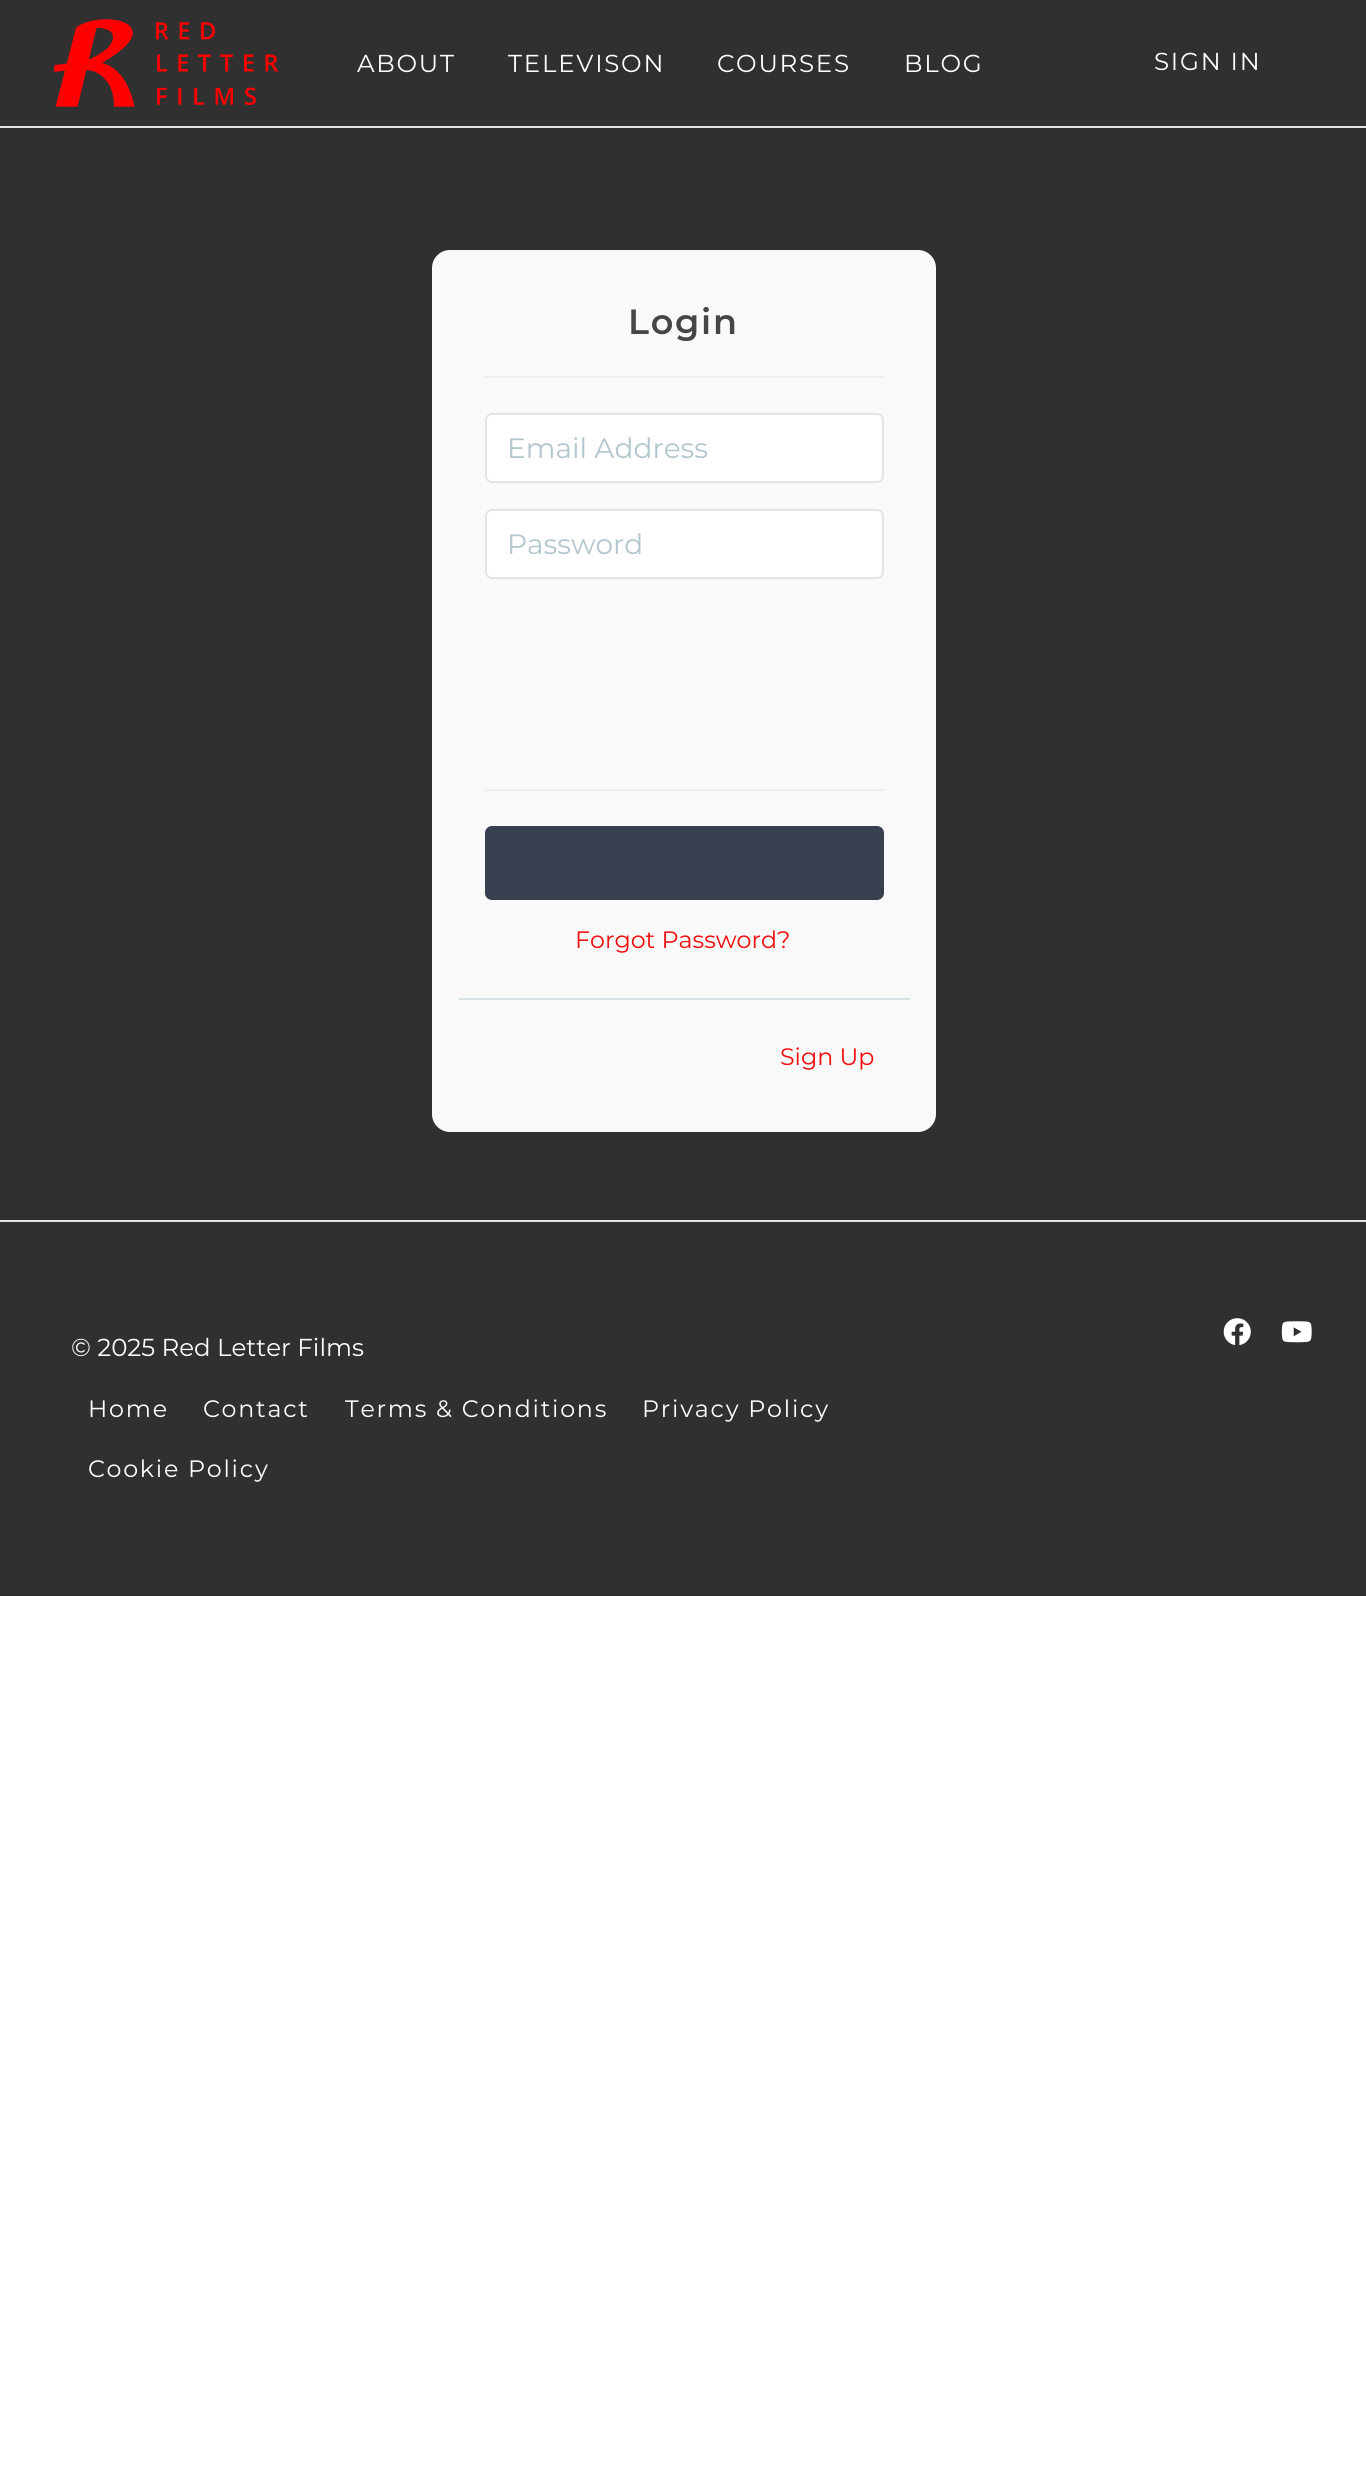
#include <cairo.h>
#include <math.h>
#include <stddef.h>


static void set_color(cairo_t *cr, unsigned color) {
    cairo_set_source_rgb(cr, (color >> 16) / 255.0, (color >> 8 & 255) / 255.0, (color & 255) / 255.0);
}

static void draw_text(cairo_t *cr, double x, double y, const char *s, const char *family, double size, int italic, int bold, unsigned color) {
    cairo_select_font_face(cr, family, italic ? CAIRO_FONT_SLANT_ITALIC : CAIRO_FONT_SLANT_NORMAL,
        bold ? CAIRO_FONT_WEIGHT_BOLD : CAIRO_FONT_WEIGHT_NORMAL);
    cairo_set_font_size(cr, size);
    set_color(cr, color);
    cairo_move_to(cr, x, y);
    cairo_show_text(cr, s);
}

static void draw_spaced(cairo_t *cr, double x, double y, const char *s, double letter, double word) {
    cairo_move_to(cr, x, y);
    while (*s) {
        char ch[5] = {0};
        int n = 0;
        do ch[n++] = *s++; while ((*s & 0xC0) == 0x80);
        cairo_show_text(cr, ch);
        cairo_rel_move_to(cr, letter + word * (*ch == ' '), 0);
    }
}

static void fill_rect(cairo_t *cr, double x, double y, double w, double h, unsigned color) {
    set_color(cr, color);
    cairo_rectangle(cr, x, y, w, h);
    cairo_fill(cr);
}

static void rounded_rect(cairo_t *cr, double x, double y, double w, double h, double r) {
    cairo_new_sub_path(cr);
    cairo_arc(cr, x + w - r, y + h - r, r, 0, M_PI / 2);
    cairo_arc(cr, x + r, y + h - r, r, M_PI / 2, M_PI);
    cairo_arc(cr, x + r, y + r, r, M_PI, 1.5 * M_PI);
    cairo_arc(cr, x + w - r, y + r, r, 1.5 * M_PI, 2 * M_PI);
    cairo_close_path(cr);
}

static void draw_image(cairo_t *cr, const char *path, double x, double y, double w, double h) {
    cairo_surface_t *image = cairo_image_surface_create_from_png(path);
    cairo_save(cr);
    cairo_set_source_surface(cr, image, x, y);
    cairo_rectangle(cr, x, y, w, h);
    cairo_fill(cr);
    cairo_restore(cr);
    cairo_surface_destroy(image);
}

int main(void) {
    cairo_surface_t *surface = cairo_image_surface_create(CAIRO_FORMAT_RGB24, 1366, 2467);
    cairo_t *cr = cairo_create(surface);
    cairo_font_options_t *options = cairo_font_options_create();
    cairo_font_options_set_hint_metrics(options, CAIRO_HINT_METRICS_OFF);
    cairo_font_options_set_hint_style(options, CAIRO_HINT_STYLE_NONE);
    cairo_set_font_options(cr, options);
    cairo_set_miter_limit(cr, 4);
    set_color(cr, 0xFFFFFF);
    cairo_paint(cr);
    fill_rect(cr, 0, 126, 1366, 2, 0xE4E4E4);
    fill_rect(cr, 0, 0, 1366, 126, 0x313031);
    draw_image(cr, "assets/img1.png", 54, 19, 225, 88);
    cairo_select_font_face(cr, "Montserrat", CAIRO_FONT_SLANT_NORMAL, CAIRO_FONT_WEIGHT_NORMAL);
    cairo_set_font_size(cr, 24.5);
    set_color(cr, 0xFFFFFF);
    draw_spaced(cr, 357, 72, "ABOUT", 1.75, 0);
    draw_spaced(cr, 508, 72, "TELEVISON", 1.75, 0);
    draw_spaced(cr, 717, 72, "COURSES", 1.75, 0);
    draw_spaced(cr, 904, 72, "BLOG", 1.75, 0);
    draw_spaced(cr, 1154, 70, "SIGN IN", 1.75, 0);
    fill_rect(cr, 0, 128, 1366, 1092, 0x313031);
    set_color(cr, 0xF9F9F9);
    rounded_rect(cr, 432, 250, 504, 882, 18);
    cairo_fill(cr);
    cairo_select_font_face(cr, "Montserrat SemiBold", CAIRO_FONT_SLANT_NORMAL, CAIRO_FONT_WEIGHT_NORMAL);
    cairo_set_font_size(cr, 35);
    set_color(cr, 0x464646);
    draw_spaced(cr, 628, 334, "Login", 1.75, 0);
    fill_rect(cr, 485, 376, 399, 2, 0xEEEEEE);
    set_color(cr, 0xFFFFFF);
    rounded_rect(cr, 486, 414, 397, 68, 6);
    cairo_fill_preserve(cr);
    set_color(cr, 0xE4E4E4);
    cairo_stroke(cr);
    draw_text(cr, 507, 458, "Email Address", "Montserrat", 28, 0, 0, 0xB2C6CD);
    set_color(cr, 0xFFFFFF);
    rounded_rect(cr, 486, 510, 397, 68, 6);
    cairo_fill_preserve(cr);
    set_color(cr, 0xE4E4E4);
    cairo_stroke(cr);
    draw_text(cr, 507, 554, "Password", "Montserrat", 28, 0, 0, 0xB2C6CD);
    fill_rect(cr, 485, 789, 399, 2, 0xEEEEEE);
    set_color(cr, 0x383F4E);
    rounded_rect(cr, 486, 827, 397, 72, 6);
    cairo_fill_preserve(cr);
    cairo_stroke(cr);
    draw_text(cr, 575, 948, "Forgot Password?", "Montserrat", 23.75, 0, 0, 0xF30C0C);
    fill_rect(cr, 459, 998, 451, 2, 0xD6E1E5);
    draw_text(cr, 780, 1065, "Sign Up", "Montserrat", 23.75, 0, 0, 0xF30C0C);
    fill_rect(cr, 0, 1222, 1366, 374, 0x313031);
    fill_rect(cr, 0, 1220, 1366, 2, 0xE4E4E4);
    draw_image(cr, "assets/img2.png", 1223, 1318, 28, 28);
    draw_image(cr, "assets/img3.png", 1281, 1321, 31, 22);
    draw_text(cr, 71, 1356, "© 2025 Red Letter Films", "Montserrat", 24.5, 0, 0, 0xFFFFFF);
    cairo_set_font_size(cr, 23.75);
    draw_spaced(cr, 88, 1417, "Home", 1.75, 0);
    draw_spaced(cr, 203, 1417, "Contact", 1.75, 0);
    draw_spaced(cr, 345, 1417, "Terms & Conditions", 1.75, 0);
    draw_spaced(cr, 642, 1417, "Privacy Policy", 1.75, 0);
    draw_spaced(cr, 88, 1477, "Cookie Policy", 1.75, 0);
    cairo_surface_write_to_png(surface, "output.png");
    cairo_font_options_destroy(options);
    cairo_destroy(cr);
    cairo_surface_destroy(surface);
    return 0;
}
